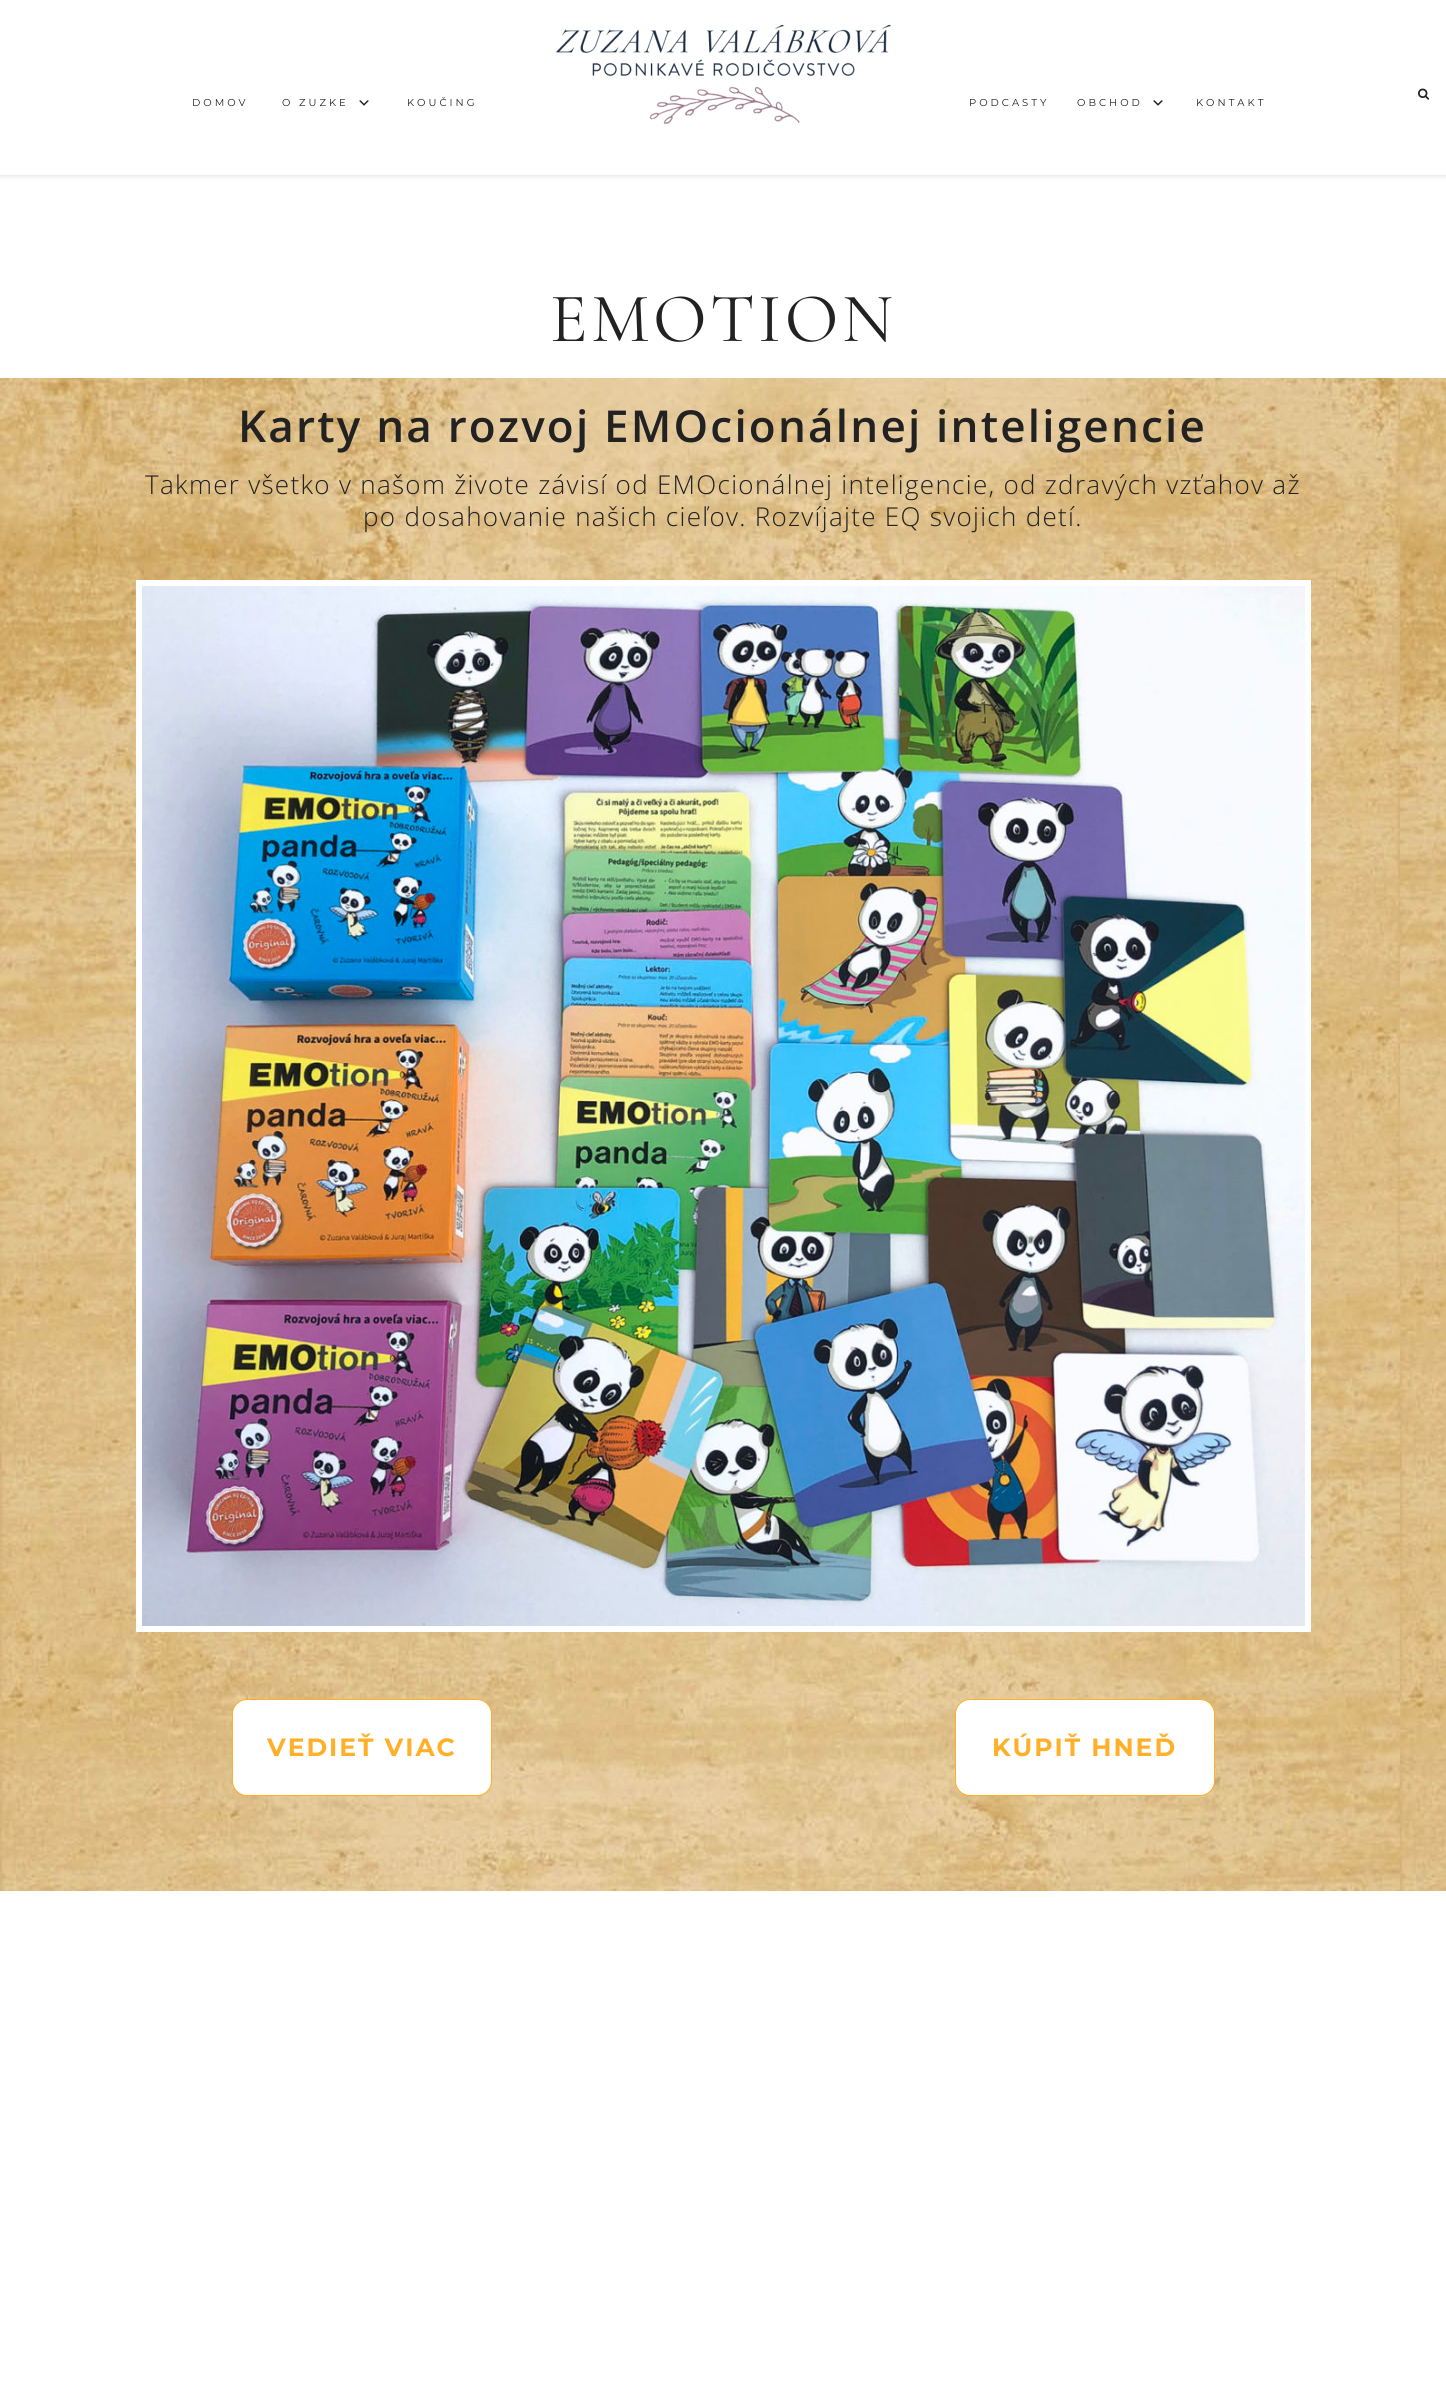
#include <cairo.h>
#include <math.h>
#include <stddef.h>


static void set_color(cairo_t *cr, unsigned color) {
    cairo_set_source_rgb(cr, (color >> 16) / 255.0, (color >> 8 & 255) / 255.0, (color & 255) / 255.0);
}

static void draw_spaced(cairo_t *cr, double x, double y, const char *s, double letter, double word) {
    cairo_move_to(cr, x, y);
    while (*s) {
        char ch[5] = {0};
        int n = 0;
        do ch[n++] = *s++; while ((*s & 0xC0) == 0x80);
        cairo_show_text(cr, ch);
        cairo_rel_move_to(cr, letter + word * (*ch == ' '), 0);
    }
}

static void fill_rect(cairo_t *cr, double x, double y, double w, double h, unsigned color) {
    set_color(cr, color);
    cairo_rectangle(cr, x, y, w, h);
    cairo_fill(cr);
}

static void rounded_rect(cairo_t *cr, double x, double y, double w, double h, double r) {
    cairo_new_sub_path(cr);
    cairo_arc(cr, x + w - r, y + h - r, r, 0, M_PI / 2);
    cairo_arc(cr, x + r, y + h - r, r, M_PI / 2, M_PI);
    cairo_arc(cr, x + r, y + r, r, M_PI, 1.5 * M_PI);
    cairo_arc(cr, x + w - r, y + r, r, 1.5 * M_PI, 2 * M_PI);
    cairo_close_path(cr);
}

static void draw_shadow(cairo_t *cr, double x, double y, double w, double h, double r, double blur, double alpha) {
    cairo_push_group_with_content(cr, CAIRO_CONTENT_ALPHA);
    cairo_set_operator(cr, CAIRO_OPERATOR_SOURCE);
    for (int i = 15; i >= -15 && fmin(w, h) + blur * i / 3 > 0; i -= 2) {
        double e = blur * i / 6;
        cairo_set_source_rgba(cr, 0, 0, 0, alpha * erfc((i - 1) / 8.5) / 2);
        rounded_rect(cr, x - e, y - e, w + 2 * e, h + 2 * e, fmax(0, fmin(r + e + blur * .6, fmin(w, h) / 2 + e)));
        cairo_fill(cr);
    }
    cairo_pattern_t *soft = cairo_pop_group(cr);
    cairo_mask(cr, soft);
    cairo_pattern_destroy(soft);
}

static void draw_image(cairo_t *cr, const char *path, double x, double y, double w, double h) {
    cairo_surface_t *image = cairo_image_surface_create_from_png(path);
    cairo_save(cr);
    cairo_set_source_surface(cr, image, x, y);
    cairo_rectangle(cr, x, y, w, h);
    cairo_fill(cr);
    cairo_restore(cr);
    cairo_surface_destroy(image);
}

int main(void) {
    cairo_surface_t *surface = cairo_image_surface_create(CAIRO_FORMAT_RGB24, 1446, 2402);
    cairo_t *cr = cairo_create(surface);
    cairo_font_options_t *options = cairo_font_options_create();
    cairo_font_options_set_hint_metrics(options, CAIRO_HINT_METRICS_OFF);
    cairo_font_options_set_hint_style(options, CAIRO_HINT_STYLE_NONE);
    cairo_set_font_options(cr, options);
    cairo_set_miter_limit(cr, 4);
    set_color(cr, 0xFFFFFF);
    cairo_paint(cr);
    cairo_save(cr);
    cairo_rectangle(cr, 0, 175, 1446, 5);
    cairo_clip(cr);
    set_color(cr, 0xBEBEBE);
    draw_shadow(cr, 0, 1, 1446, 175, 0, 2.5, 0.46);
    cairo_restore(cr);
    cairo_select_font_face(cr, "Montserrat", CAIRO_FONT_SLANT_NORMAL, CAIRO_FONT_WEIGHT_NORMAL);
    cairo_set_font_size(cr, 10);
    set_color(cr, 0x222222);
    draw_spaced(cr, 192, 106, "DOMOV", 3, 0);
    draw_spaced(cr, 282, 106, "O ZUZKE", 3, 0);
    draw_image(cr, "assets/img1.png", 359, 100, 10, 6);
    draw_spaced(cr, 407, 106, "KOUČING", 3, 0);
    draw_image(cr, "assets/img2.png", 556, 24, 335, 100);
    draw_image(cr, "assets/img3.png", 1418, 88, 12, 12);
    draw_spaced(cr, 969, 106, "PODCASTY", 3, 0);
    draw_spaced(cr, 1077, 106, "OBCHOD", 3, 0);
    draw_image(cr, "assets/img1.png", 1153, 100, 10, 6);
    draw_spaced(cr, 1196, 106, "KONTAKT", 3, 0);
    cairo_select_font_face(cr, "Cormorant Garamond", CAIRO_FONT_SLANT_NORMAL, CAIRO_FONT_WEIGHT_NORMAL);
    cairo_set_font_size(cr, 70);
    draw_spaced(cr, 550, 341, "EMOTION", 3.5, 0);
    draw_image(cr, "assets/img4.png", 0, 378, 1446, 1513);
    cairo_select_font_face(cr, "Open Sans SemiBold", CAIRO_FONT_SLANT_NORMAL, CAIRO_FONT_WEIGHT_NORMAL);
    cairo_set_font_size(cr, 44);
    draw_spaced(cr, 238, 442, "Karty na rozvoj EMOcionálnej inteligencie", 2.2, 0);
    cairo_select_font_face(cr, "Open Sans Light", CAIRO_FONT_SLANT_NORMAL, CAIRO_FONT_WEIGHT_NORMAL);
    cairo_set_font_size(cr, 26);
    draw_spaced(cr, 145, 494, "Takmer všetko v našom živote závisí od EMOcionálnej inteligencie, od zdravých vzťahov až", 1.3, 0);
    draw_spaced(cr, 363, 526, "po dosahovanie našich cieľov. Rozvíjajte EQ svojich detí.", 1.3, 0);
    fill_rect(cr, 136, 580, 1175, 1052, 0xFFFFFF);
    draw_image(cr, "assets/img5.png", 142, 586, 1163, 1040);
    rounded_rect(cr, 232.5, 1699.5, 259, 96, 14.5);
    cairo_fill_preserve(cr);
    set_color(cr, 0xFFB028);
    cairo_set_line_width(cr, 1);
    cairo_stroke(cr);
    cairo_select_font_face(cr, "Montserrat", CAIRO_FONT_SLANT_NORMAL, CAIRO_FONT_WEIGHT_BOLD);
    cairo_set_font_size(cr, 25);
    draw_spaced(cr, 267, 1756, "VEDIEŤ VIAC", 2, 0);
    set_color(cr, 0xFFFFFF);
    rounded_rect(cr, 955.5, 1699.5, 259, 96, 14.5);
    cairo_fill_preserve(cr);
    set_color(cr, 0xFFB028);
    cairo_stroke(cr);
    draw_spaced(cr, 992, 1756, "KÚPIŤ HNEĎ", 2, 0);
    cairo_surface_write_to_png(surface, "output.png");
    cairo_font_options_destroy(options);
    cairo_destroy(cr);
    cairo_surface_destroy(surface);
    return 0;
}
